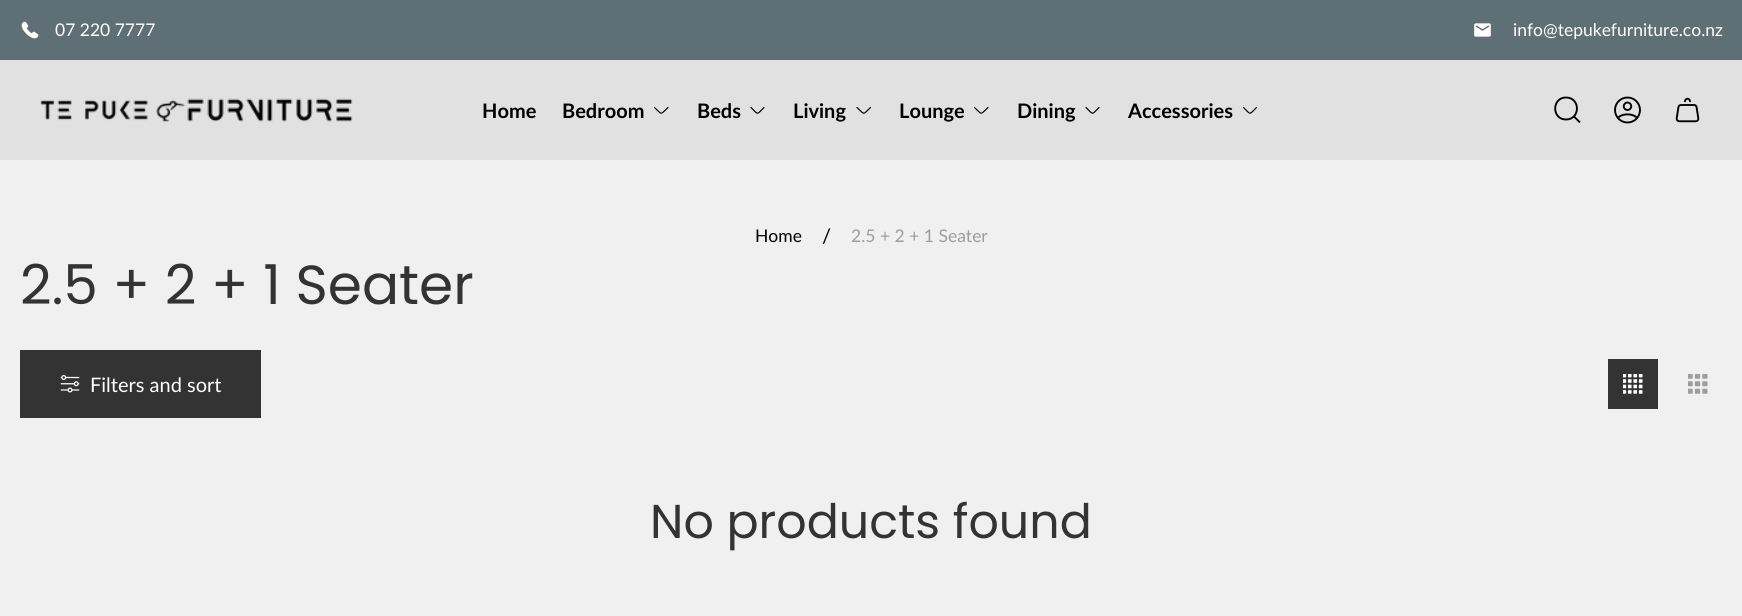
#include <cairo.h>
#include <math.h>
#include <stddef.h>


static void set_color(cairo_t *cr, unsigned color) {
    cairo_set_source_rgb(cr, (color >> 16) / 255.0, (color >> 8 & 255) / 255.0, (color & 255) / 255.0);
}

static void draw_text(cairo_t *cr, double x, double y, const char *s, const char *family, double size, int italic, int bold, unsigned color) {
    cairo_select_font_face(cr, family, italic ? CAIRO_FONT_SLANT_ITALIC : CAIRO_FONT_SLANT_NORMAL,
        bold ? CAIRO_FONT_WEIGHT_BOLD : CAIRO_FONT_WEIGHT_NORMAL);
    cairo_set_font_size(cr, size);
    set_color(cr, color);
    cairo_move_to(cr, x, y);
    cairo_show_text(cr, s);
}

static void fill_rect(cairo_t *cr, double x, double y, double w, double h, unsigned color) {
    set_color(cr, color);
    cairo_rectangle(cr, x, y, w, h);
    cairo_fill(cr);
}

static void draw_image(cairo_t *cr, const char *path, double x, double y, double w, double h) {
    cairo_surface_t *image = cairo_image_surface_create_from_png(path);
    cairo_save(cr);
    cairo_set_source_surface(cr, image, x, y);
    cairo_rectangle(cr, x, y, w, h);
    cairo_fill(cr);
    cairo_restore(cr);
    cairo_surface_destroy(image);
}

int main(void) {
    cairo_surface_t *surface = cairo_image_surface_create(CAIRO_FORMAT_RGB24, 1742, 616);
    cairo_t *cr = cairo_create(surface);
    cairo_font_options_t *options = cairo_font_options_create();
    cairo_font_options_set_hint_metrics(options, CAIRO_HINT_METRICS_OFF);
    cairo_font_options_set_hint_style(options, CAIRO_HINT_STYLE_NONE);
    cairo_set_font_options(cr, options);
    cairo_set_miter_limit(cr, 4);
    set_color(cr, 0xF0F0F0);
    cairo_paint(cr);
    fill_rect(cr, 0, 0, 1742, 60, 0x5F6F76);
    draw_image(cr, "assets/img1.png", 21, 21, 18, 18);
    draw_text(cr, 55, 36, "07 220 7777", "Lato", 17.5, 0, 0, 0xFFFFFF);
    draw_image(cr, "assets/img2.png", 1474, 23, 17, 14);
    draw_text(cr, 1513, 36, "info@tepukefurniture.co.nz", "Lato", 17.5, 0, 0, 0xFFFFFF);
    fill_rect(cr, 0, 60, 1742, 100, 0xE1E1E1);
    draw_image(cr, "assets/img3.png", 40, 98, 313, 24);
    draw_text(cr, 482, 118, "Home", "Lato", 20, 0, 1, 0x000000);
    draw_text(cr, 562, 118, "Bedroom", "Lato", 20, 0, 1, 0x000000);
    cairo_new_path(cr);
    cairo_move_to(cr, 668, 107.5);
    cairo_curve_to(cr, 660, 115, 662.5, 115, 654.5, 107.5);
    cairo_set_line_width(cr, 1.2);
    cairo_set_line_cap(cr, CAIRO_LINE_CAP_ROUND);
    cairo_set_line_join(cr, CAIRO_LINE_JOIN_ROUND);
    cairo_stroke(cr);
    draw_text(cr, 697, 118, "Beds", "Lato", 20, 0, 1, 0x000000);
    cairo_new_path(cr);
    cairo_move_to(cr, 764, 107.5);
    cairo_curve_to(cr, 756.5, 115, 758.5, 115, 751, 107.5);
    cairo_stroke(cr);
    draw_text(cr, 793, 118, "Living", "Lato", 20, 0, 1, 0x000000);
    cairo_new_path(cr);
    cairo_move_to(cr, 870.5, 107.5);
    cairo_curve_to(cr, 862.5, 115, 865, 115, 857, 107.5);
    cairo_stroke(cr);
    draw_text(cr, 899, 118, "Lounge", "Lato", 20, 0, 1, 0x000000);
    cairo_new_path(cr);
    cairo_move_to(cr, 988, 107.5);
    cairo_curve_to(cr, 980, 115, 982.5, 115, 974.5, 107.5);
    cairo_stroke(cr);
    draw_text(cr, 1017, 118, "Dining", "Lato", 20, 0, 1, 0x000000);
    cairo_new_path(cr);
    cairo_move_to(cr, 1099, 107.5);
    cairo_curve_to(cr, 1091.5, 115, 1093.5, 115, 1086, 107.5);
    cairo_stroke(cr);
    draw_text(cr, 1128, 118, "Accessories", "Lato", 20, 0, 1, 0x000000);
    cairo_new_path(cr);
    cairo_move_to(cr, 1256.5, 107.5);
    cairo_curve_to(cr, 1249, 115, 1251, 115, 1243.5, 107.5);
    cairo_stroke(cr);
    cairo_new_path(cr);
    cairo_move_to(cr, 1574, 116.5);
    cairo_line_to(cr, 1580, 122.5);
    cairo_move_to(cr, 1566, 97.5);
    cairo_curve_to(cr, 1580.5, 97.5, 1580.5, 119, 1566.5, 119.5);
    cairo_curve_to(cr, 1551.5, 120, 1551.5, 97.5, 1566, 97.5);
    cairo_close_path(cr);
    cairo_set_line_width(cr, 1.9);
    cairo_set_line_cap(cr, CAIRO_LINE_CAP_BUTT);
    cairo_set_line_join(cr, CAIRO_LINE_JOIN_MITER);
    cairo_stroke(cr);
    draw_image(cr, "assets/img4.png", 1614, 96, 27, 28);
    draw_image(cr, "assets/img5.png", 1675, 97, 25, 26);
    draw_text(cr, 755, 242, "Home", "Lato", 17.5, 0, 0, 0x000000);
    draw_text(cr, 822, 243, "/", "Lato", 20, 0, 0, 0x000000);
    draw_text(cr, 851, 242, "2.5 + 2 + 1 Seater", "Lato", 17.5, 0, 0, 0x9D9D9D);
    draw_text(cr, 20, 304, "2.5 + 2 + 1 Seater", "Poppins", 55, 0, 0, 0x333333);
    fill_rect(cr, 20, 350, 241, 68, 0x333333);
    draw_image(cr, "assets/img6.png", 60, 375, 20, 18);
    draw_text(cr, 90, 392, "Filters and sort", "Lato", 20, 0, 0, 0xFFFFFF);
    fill_rect(cr, 1608, 359, 50, 50, 0x333333);
    draw_image(cr, "assets/img7.png", 1623, 374, 20, 20);
    draw_image(cr, "assets/img8.png", 1688, 374, 20, 20);
    draw_text(cr, 650, 538, "No products found", "Poppins", 47.5, 0, 0, 0x333333);
    cairo_surface_write_to_png(surface, "output.png");
    cairo_font_options_destroy(options);
    cairo_destroy(cr);
    cairo_surface_destroy(surface);
    return 0;
}
